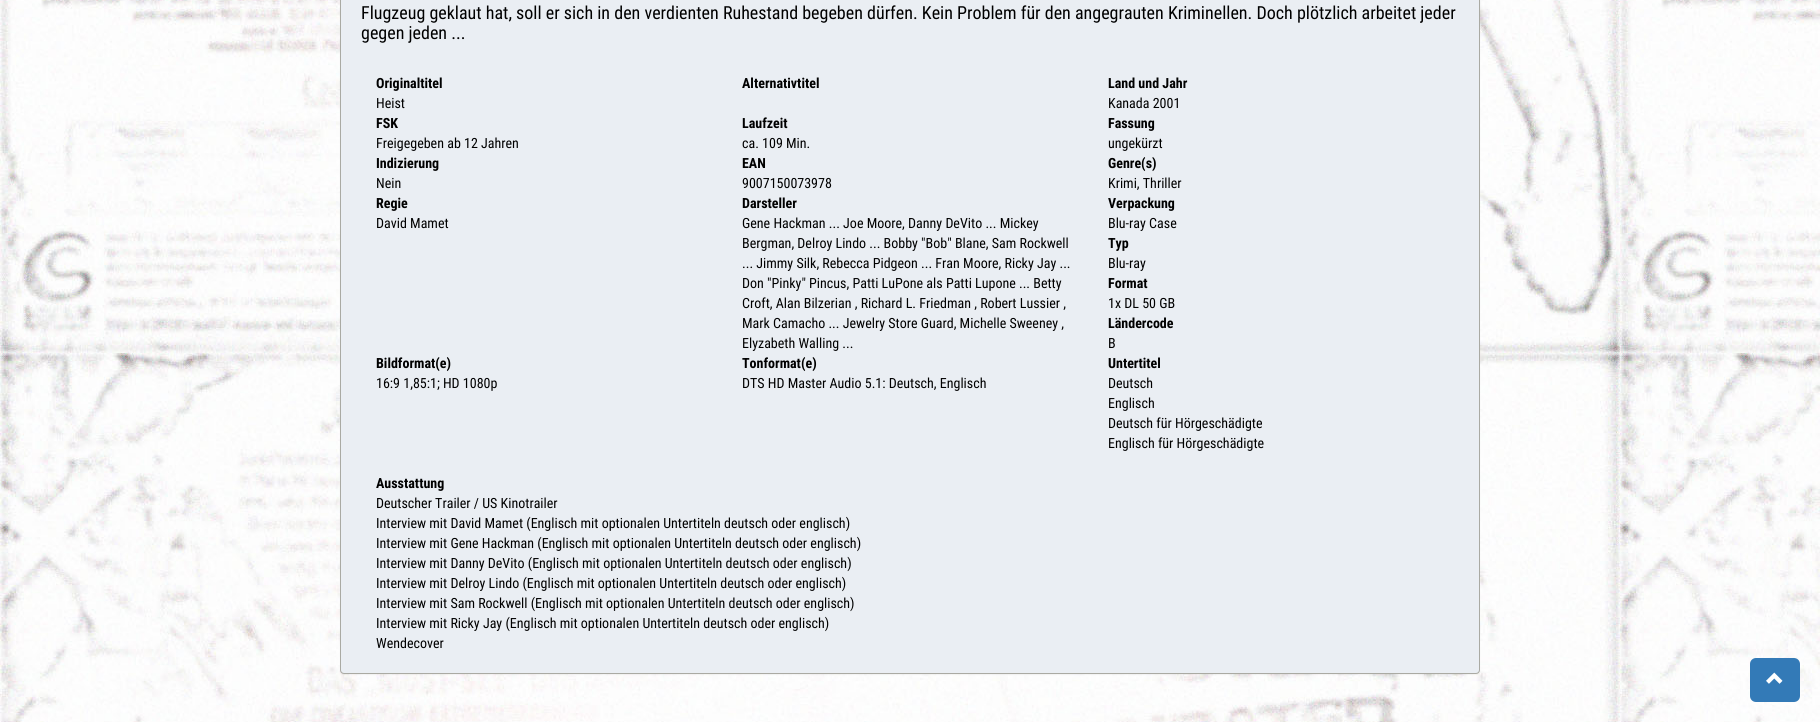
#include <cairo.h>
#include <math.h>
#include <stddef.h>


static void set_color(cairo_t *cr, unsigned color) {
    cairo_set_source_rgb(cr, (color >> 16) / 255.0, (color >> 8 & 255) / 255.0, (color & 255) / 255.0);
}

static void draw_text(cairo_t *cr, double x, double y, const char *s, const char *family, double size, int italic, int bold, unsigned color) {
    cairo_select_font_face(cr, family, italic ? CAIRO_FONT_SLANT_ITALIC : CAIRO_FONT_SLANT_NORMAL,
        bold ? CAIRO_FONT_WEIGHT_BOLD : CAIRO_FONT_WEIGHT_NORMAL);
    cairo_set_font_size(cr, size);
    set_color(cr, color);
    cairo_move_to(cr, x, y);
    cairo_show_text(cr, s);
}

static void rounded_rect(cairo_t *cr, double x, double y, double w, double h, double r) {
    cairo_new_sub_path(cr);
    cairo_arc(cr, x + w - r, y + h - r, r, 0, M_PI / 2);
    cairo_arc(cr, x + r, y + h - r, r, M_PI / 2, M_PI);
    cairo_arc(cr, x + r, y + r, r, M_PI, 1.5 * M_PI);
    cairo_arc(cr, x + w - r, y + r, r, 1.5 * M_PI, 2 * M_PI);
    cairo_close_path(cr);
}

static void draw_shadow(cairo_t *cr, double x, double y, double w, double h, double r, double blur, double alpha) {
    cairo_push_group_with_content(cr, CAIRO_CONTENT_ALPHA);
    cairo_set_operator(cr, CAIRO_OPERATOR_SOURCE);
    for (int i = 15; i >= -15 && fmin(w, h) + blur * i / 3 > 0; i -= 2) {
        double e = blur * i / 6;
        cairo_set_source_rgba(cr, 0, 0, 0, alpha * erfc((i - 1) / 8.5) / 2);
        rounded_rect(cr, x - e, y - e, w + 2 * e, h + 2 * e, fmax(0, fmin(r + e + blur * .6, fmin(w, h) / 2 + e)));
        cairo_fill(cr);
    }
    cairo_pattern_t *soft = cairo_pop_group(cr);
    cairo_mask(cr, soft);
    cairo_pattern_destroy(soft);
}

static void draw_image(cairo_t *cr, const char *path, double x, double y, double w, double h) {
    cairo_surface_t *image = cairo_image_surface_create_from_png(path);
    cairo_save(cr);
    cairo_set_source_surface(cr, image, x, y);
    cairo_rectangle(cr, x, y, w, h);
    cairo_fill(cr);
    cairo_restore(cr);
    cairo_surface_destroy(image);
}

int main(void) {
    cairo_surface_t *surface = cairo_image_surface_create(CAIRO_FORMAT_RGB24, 1820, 722);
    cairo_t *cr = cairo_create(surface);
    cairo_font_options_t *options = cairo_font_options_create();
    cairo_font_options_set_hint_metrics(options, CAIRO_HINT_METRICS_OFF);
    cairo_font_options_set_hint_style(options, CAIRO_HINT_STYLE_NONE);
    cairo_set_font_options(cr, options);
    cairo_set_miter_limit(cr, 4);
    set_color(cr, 0xFFFFFF);
    cairo_paint(cr);
    draw_image(cr, "assets/img1.png", 0, 0, 1820, 722);
    set_color(cr, 0x000000);
    draw_shadow(cr, 340, -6, 1140, 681, 4, 0.5, 0.05);
    set_color(cr, 0xEAEEF3);
    rounded_rect(cr, 340.5, -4.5, 1139, 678, 3.5);
    cairo_fill_preserve(cr);
    set_color(cr, 0xAAAAA3);
    cairo_set_line_width(cr, 1);
    cairo_stroke(cr);
    draw_text(cr, 361, 19, "Flugzeug geklaut hat, soll er sich in den verdienten Ruhestand begeben dürfen. Kein Problem für den angegrauten Kriminellen. Doch plötzlich arbeitet jeder", "Roboto Condensed", 18, 0, 0, 0x000000);
    draw_text(cr, 361, 39, "gegen jeden ...", "Roboto Condensed", 18, 0, 0, 0x000000);
    draw_text(cr, 376, 88, "Originaltitel", "Roboto Condensed", 14, 0, 1, 0x000000);
    draw_text(cr, 376, 108, "Heist", "Roboto Condensed", 14, 0, 0, 0x000000);
    draw_text(cr, 742, 88, "Alternativtitel", "Roboto Condensed", 14, 0, 1, 0x000000);
    draw_text(cr, 1108, 88, "Land und Jahr", "Roboto Condensed", 14, 0, 1, 0x000000);
    draw_text(cr, 1108, 108, "Kanada 2001", "Roboto Condensed", 14, 0, 0, 0x000000);
    draw_text(cr, 376, 128, "FSK", "Roboto Condensed", 14, 0, 1, 0x000000);
    draw_text(cr, 376, 148, "Freigegeben ab 12 Jahren", "Roboto Condensed", 14, 0, 0, 0x000000);
    draw_text(cr, 742, 128, "Laufzeit", "Roboto Condensed", 14, 0, 1, 0x000000);
    draw_text(cr, 742, 148, "ca. 109 Min.", "Roboto Condensed", 14, 0, 0, 0x000000);
    draw_text(cr, 1108, 128, "Fassung", "Roboto Condensed", 14, 0, 1, 0x000000);
    draw_text(cr, 1108, 148, "ungekürzt", "Roboto Condensed", 14, 0, 0, 0x000000);
    draw_text(cr, 376, 168, "Indizierung", "Roboto Condensed", 14, 0, 1, 0x000000);
    draw_text(cr, 376, 188, "Nein", "Roboto Condensed", 14, 0, 0, 0x000000);
    draw_text(cr, 742, 168, "EAN", "Roboto Condensed", 14, 0, 1, 0x000000);
    draw_text(cr, 742, 188, "9007150073978", "Roboto Condensed", 14, 0, 0, 0x000000);
    draw_text(cr, 1108, 168, "Genre(s)", "Roboto Condensed", 14, 0, 1, 0x000000);
    draw_text(cr, 1108, 188, "Krimi, Thriller", "Roboto Condensed", 14, 0, 0, 0x000000);
    draw_text(cr, 376, 208, "Regie", "Roboto Condensed", 14, 0, 1, 0x000000);
    draw_text(cr, 376, 228, "David Mamet", "Roboto Condensed", 14, 0, 0, 0x000000);
    draw_text(cr, 742, 208, "Darsteller", "Roboto Condensed", 14, 0, 1, 0x000000);
    draw_text(cr, 742, 228, "Gene Hackman ... Joe Moore, Danny DeVito ... Mickey", "Roboto Condensed", 14, 0, 0, 0x000000);
    draw_text(cr, 742, 248, "Bergman, Delroy Lindo ... Bobby \"Bob\" Blane, Sam Rockwell", "Roboto Condensed", 14, 0, 0, 0x000000);
    draw_text(cr, 742, 268, "... Jimmy Silk, Rebecca Pidgeon ... Fran Moore, Ricky Jay ...", "Roboto Condensed", 14, 0, 0, 0x000000);
    draw_text(cr, 742, 288, "Don \"Pinky\" Pincus, Patti LuPone als Patti Lupone ... Betty", "Roboto Condensed", 14, 0, 0, 0x000000);
    draw_text(cr, 742, 308, "Croft, Alan Bilzerian , Richard L. Friedman , Robert Lussier ,", "Roboto Condensed", 14, 0, 0, 0x000000);
    draw_text(cr, 742, 328, "Mark Camacho ... Jewelry Store Guard, Michelle Sweeney ,", "Roboto Condensed", 14, 0, 0, 0x000000);
    draw_text(cr, 742, 348, "Elyzabeth Walling ...", "Roboto Condensed", 14, 0, 0, 0x000000);
    draw_text(cr, 1108, 208, "Verpackung", "Roboto Condensed", 14, 0, 1, 0x000000);
    draw_text(cr, 1108, 228, "Blu-ray Case", "Roboto Condensed", 14, 0, 0, 0x000000);
    draw_text(cr, 1108, 248, "Typ", "Roboto Condensed", 14, 0, 1, 0x000000);
    draw_text(cr, 1108, 268, "Blu-ray", "Roboto Condensed", 14, 0, 0, 0x000000);
    draw_text(cr, 1108, 288, "Format", "Roboto Condensed", 14, 0, 1, 0x000000);
    draw_text(cr, 1108, 308, "1x DL 50 GB", "Roboto Condensed", 14, 0, 0, 0x000000);
    draw_text(cr, 1108, 328, "Ländercode", "Roboto Condensed", 14, 0, 1, 0x000000);
    draw_text(cr, 1108, 348, "B", "Roboto Condensed", 14, 0, 0, 0x000000);
    draw_text(cr, 376, 368, "Bildformat(e)", "Roboto Condensed", 14, 0, 1, 0x000000);
    draw_text(cr, 376, 388, "16:9 1,85:1; HD 1080p", "Roboto Condensed", 14, 0, 0, 0x000000);
    draw_text(cr, 742, 368, "Tonformat(e)", "Roboto Condensed", 14, 0, 1, 0x000000);
    draw_text(cr, 742, 388, "DTS HD Master Audio 5.1: Deutsch, Englisch", "Roboto Condensed", 14, 0, 0, 0x000000);
    draw_text(cr, 1108, 368, "Untertitel", "Roboto Condensed", 14, 0, 1, 0x000000);
    draw_text(cr, 1108, 388, "Deutsch", "Roboto Condensed", 14, 0, 0, 0x000000);
    draw_text(cr, 1108, 408, "Englisch", "Roboto Condensed", 14, 0, 0, 0x000000);
    draw_text(cr, 1108, 428, "Deutsch für Hörgeschädigte", "Roboto Condensed", 14, 0, 0, 0x000000);
    draw_text(cr, 1108, 448, "Englisch für Hörgeschädigte", "Roboto Condensed", 14, 0, 0, 0x000000);
    draw_text(cr, 376, 488, "Ausstattung", "Roboto Condensed", 14, 0, 1, 0x000000);
    draw_text(cr, 376, 508, "Deutscher Trailer / US Kinotrailer", "Roboto Condensed", 14, 0, 0, 0x000000);
    draw_text(cr, 376, 528, "Interview mit David Mamet (Englisch mit optionalen Untertiteln deutsch oder englisch)", "Roboto Condensed", 14, 0, 0, 0x000000);
    draw_text(cr, 376, 548, "Interview mit Gene Hackman (Englisch mit optionalen Untertiteln deutsch oder englisch)", "Roboto Condensed", 14, 0, 0, 0x000000);
    draw_text(cr, 376, 568, "Interview mit Danny DeVito (Englisch mit optionalen Untertiteln deutsch oder englisch)", "Roboto Condensed", 14, 0, 0, 0x000000);
    draw_text(cr, 376, 588, "Interview mit Delroy Lindo (Englisch mit optionalen Untertiteln deutsch oder englisch)", "Roboto Condensed", 14, 0, 0, 0x000000);
    draw_text(cr, 376, 608, "Interview mit Sam Rockwell (Englisch mit optionalen Untertiteln deutsch oder englisch)", "Roboto Condensed", 14, 0, 0, 0x000000);
    draw_text(cr, 376, 628, "Interview mit Ricky Jay (Englisch mit optionalen Untertiteln deutsch oder englisch)", "Roboto Condensed", 14, 0, 0, 0x000000);
    draw_text(cr, 376, 648, "Wendecover", "Roboto Condensed", 14, 0, 0, 0x000000);
    set_color(cr, 0x337AB7);
    rounded_rect(cr, 1750, 658, 50, 44, 6);
    cairo_fill(cr);
    draw_image(cr, "assets/img2.png", 1766, 672, 17, 12);
    cairo_surface_write_to_png(surface, "output.png");
    cairo_font_options_destroy(options);
    cairo_destroy(cr);
    cairo_surface_destroy(surface);
    return 0;
}
